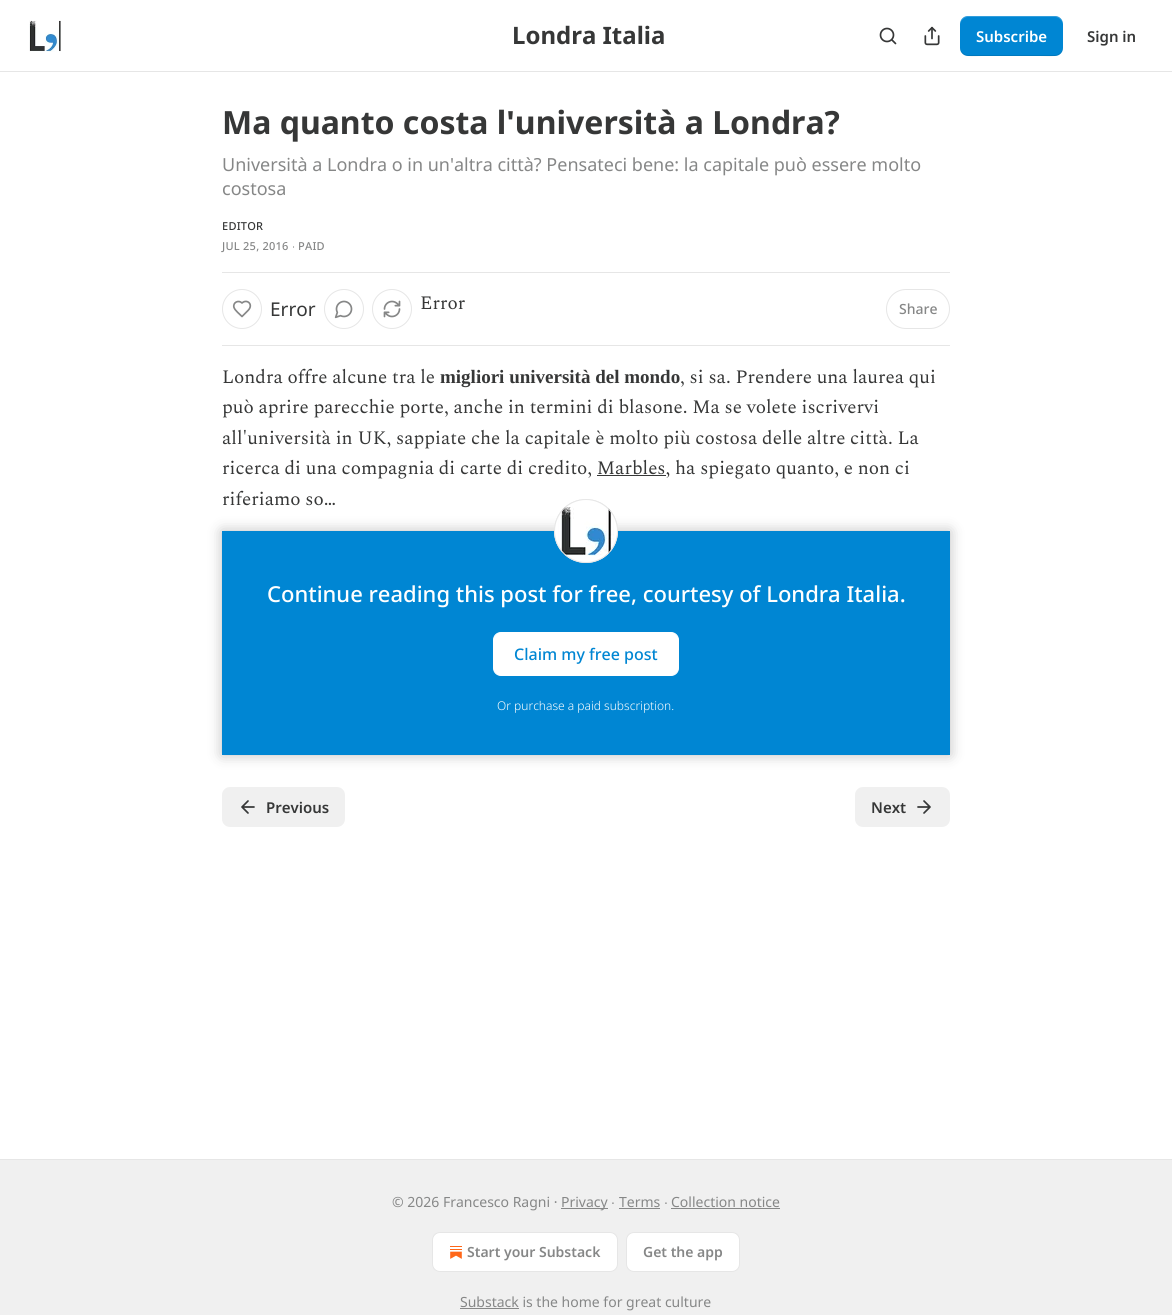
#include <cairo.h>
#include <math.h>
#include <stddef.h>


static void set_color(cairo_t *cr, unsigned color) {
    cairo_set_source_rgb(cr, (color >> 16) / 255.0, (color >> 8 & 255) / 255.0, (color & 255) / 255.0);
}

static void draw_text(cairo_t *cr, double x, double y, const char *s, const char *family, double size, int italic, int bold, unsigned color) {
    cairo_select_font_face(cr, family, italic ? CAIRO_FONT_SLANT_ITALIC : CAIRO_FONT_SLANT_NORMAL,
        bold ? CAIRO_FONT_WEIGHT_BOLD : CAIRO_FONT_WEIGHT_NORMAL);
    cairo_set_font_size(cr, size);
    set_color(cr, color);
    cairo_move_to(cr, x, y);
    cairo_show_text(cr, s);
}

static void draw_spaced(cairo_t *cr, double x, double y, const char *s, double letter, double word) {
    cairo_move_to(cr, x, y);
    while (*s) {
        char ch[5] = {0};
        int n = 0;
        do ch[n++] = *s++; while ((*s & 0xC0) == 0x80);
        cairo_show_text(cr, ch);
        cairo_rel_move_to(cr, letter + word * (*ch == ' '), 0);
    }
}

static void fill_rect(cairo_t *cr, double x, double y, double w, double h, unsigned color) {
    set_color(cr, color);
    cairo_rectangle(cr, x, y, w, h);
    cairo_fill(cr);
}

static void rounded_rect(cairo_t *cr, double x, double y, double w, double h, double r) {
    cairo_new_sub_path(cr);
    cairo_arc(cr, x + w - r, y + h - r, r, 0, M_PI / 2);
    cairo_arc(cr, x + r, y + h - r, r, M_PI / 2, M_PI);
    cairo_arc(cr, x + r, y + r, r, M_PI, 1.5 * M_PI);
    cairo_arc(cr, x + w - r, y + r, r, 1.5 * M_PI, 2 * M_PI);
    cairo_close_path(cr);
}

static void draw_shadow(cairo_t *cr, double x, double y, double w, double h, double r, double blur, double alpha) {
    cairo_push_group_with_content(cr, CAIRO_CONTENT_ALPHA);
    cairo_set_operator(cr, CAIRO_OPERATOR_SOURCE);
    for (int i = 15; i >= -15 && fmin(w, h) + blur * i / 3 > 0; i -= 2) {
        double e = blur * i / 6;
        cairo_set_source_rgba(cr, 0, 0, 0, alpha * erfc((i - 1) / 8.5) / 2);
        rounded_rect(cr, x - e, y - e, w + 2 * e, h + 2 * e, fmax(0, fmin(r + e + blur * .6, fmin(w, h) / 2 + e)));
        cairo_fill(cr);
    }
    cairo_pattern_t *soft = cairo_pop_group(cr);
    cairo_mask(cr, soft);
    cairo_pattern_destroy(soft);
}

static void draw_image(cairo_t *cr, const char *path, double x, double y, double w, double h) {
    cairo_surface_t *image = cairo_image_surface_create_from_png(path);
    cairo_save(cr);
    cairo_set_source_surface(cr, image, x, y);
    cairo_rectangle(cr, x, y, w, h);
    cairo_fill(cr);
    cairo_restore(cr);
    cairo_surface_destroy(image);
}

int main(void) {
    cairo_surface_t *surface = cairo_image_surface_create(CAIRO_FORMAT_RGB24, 1172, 1315);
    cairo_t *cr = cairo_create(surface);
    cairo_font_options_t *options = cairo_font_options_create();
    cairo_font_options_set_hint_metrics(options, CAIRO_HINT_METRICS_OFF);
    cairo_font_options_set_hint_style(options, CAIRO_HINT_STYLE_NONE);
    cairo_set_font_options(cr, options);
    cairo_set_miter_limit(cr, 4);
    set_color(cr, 0xFFFFFF);
    cairo_paint(cr);
    fill_rect(cr, 0, 71, 1172, 1, 0xE6E6E6);
    draw_image(cr, "assets/img1.png", 29, 20, 32, 32);
    draw_text(cr, 512, 44, "Londra Italia", "Noto Sans", 24, 0, 1, 0x363737);
    cairo_new_path(cr);
    cairo_arc(cr, 887, 35, 6.5, 0, 2 * M_PI);
    cairo_set_line_width(cr, 1.7);
    cairo_stroke(cr);
    cairo_new_path(cr);
    cairo_move_to(cr, 895.5, 43.5);
    cairo_line_to(cr, 892, 40);
    cairo_set_line_cap(cr, CAIRO_LINE_CAP_ROUND);
    cairo_set_line_join(cr, CAIRO_LINE_JOIN_ROUND);
    cairo_stroke(cr);
    draw_image(cr, "assets/img2.png", 924, 26, 16, 20);
    set_color(cr, 0x0086D3);
    rounded_rect(cr, 960, 16, 103, 40, 8);
    cairo_fill(cr);
    cairo_set_source_rgba(cr, 0, 0, 0, 0.1);
    cairo_new_path(cr);
    cairo_move_to(cr, 960, 47);
    cairo_curve_to(cr, 960, 59, 974, 56, 982, 56);
    cairo_line_to(cr, 1040, 56);
    cairo_curve_to(cr, 1049, 56, 1063, 59, 1063, 47);
    cairo_curve_to(cr, 1063, 51, 1059, 55, 1055, 55);
    cairo_line_to(cr, 968, 55);
    cairo_curve_to(cr, 964, 55, 960, 51, 960, 47);
    cairo_close_path(cr);
    cairo_fill(cr);
    cairo_set_source_rgba(cr, 1, 1, 1, 0.2);
    cairo_new_path(cr);
    cairo_move_to(cr, 968, 17);
    cairo_line_to(cr, 1055, 17);
    cairo_curve_to(cr, 1059, 17, 1063, 21, 1063, 25);
    cairo_curve_to(cr, 1063, 13, 1049, 16, 1040, 16);
    cairo_line_to(cr, 982, 16);
    cairo_curve_to(cr, 974, 16, 960, 13, 960, 25);
    cairo_curve_to(cr, 960, 21, 964, 17, 968, 17);
    cairo_close_path(cr);
    cairo_fill(cr);
    draw_text(cr, 976, 42, "Subscribe", "Noto Sans SemiBold", 15, 0, 0, 0xFFFFFF);
    draw_text(cr, 1087, 42, "Sign in", "Noto Sans SemiBold", 15, 0, 0, 0x363737);
    draw_text(cr, 222, 134, "Ma quanto costa l'università a Londra?", "Noto Sans", 32, 0, 1, 0x363737);
    draw_text(cr, 222, 171, "Università a Londra o in un'altra città? Pensateci bene: la capitale può essere molto", "Noto Sans", 18, 0, 0, 0x868787);
    draw_text(cr, 222, 195, "costosa", "Noto Sans", 18, 0, 0, 0x868787);
    cairo_select_font_face(cr, "Noto Sans Medium", CAIRO_FONT_SLANT_NORMAL, CAIRO_FONT_WEIGHT_NORMAL);
    cairo_set_font_size(cr, 11);
    set_color(cr, 0x363737);
    draw_spaced(cr, 222, 230, "EDITOR", 0.25, 0);
    set_color(cr, 0x868787);
    draw_spaced(cr, 222, 250, "JUL 25, 2016", 0.25, 0);
    cairo_select_font_face(cr, "Liberation Sans", CAIRO_FONT_SLANT_NORMAL, CAIRO_FONT_WEIGHT_NORMAL);
    draw_spaced(cr, 292, 250, "∙", 0.25, 0);
    cairo_select_font_face(cr, "Noto Sans Medium", CAIRO_FONT_SLANT_NORMAL, CAIRO_FONT_WEIGHT_NORMAL);
    draw_spaced(cr, 298, 250, "PAID", 0.25, 0);
    fill_rect(cr, 222, 272, 728, 1, 0xE6E6E6);
    fill_rect(cr, 222, 345, 728, 1, 0xE6E6E6);
    cairo_new_path(cr);
    cairo_arc(cr, 242, 309, 19.5, 0, 2 * M_PI);
    cairo_set_line_width(cr, 1);
    cairo_set_line_cap(cr, CAIRO_LINE_CAP_BUTT);
    cairo_set_line_join(cr, CAIRO_LINE_JOIN_MITER);
    cairo_stroke(cr);
    cairo_new_path(cr);
    cairo_move_to(cr, 248, 310.5);
    cairo_curve_to(cr, 254, 304.5, 247, 298.5, 242, 303);
    cairo_curve_to(cr, 238.5, 299.5, 232.5, 302.5, 234, 307.5);
    cairo_curve_to(cr, 235, 310.5, 240, 314.5, 242, 316.5);
    cairo_close_path(cr);
    set_color(cr, 0x868787);
    cairo_set_line_width(cr, 1.7);
    cairo_set_line_cap(cr, CAIRO_LINE_CAP_ROUND);
    cairo_set_line_join(cr, CAIRO_LINE_JOIN_ROUND);
    cairo_stroke(cr);
    draw_text(cr, 270, 316, "Error", "Noto Sans", 19, 0, 0, 0x363737);
    cairo_new_path(cr);
    cairo_arc(cr, 344, 309, 19.5, 0, 2 * M_PI);
    set_color(cr, 0xE6E6E6);
    cairo_set_line_width(cr, 1);
    cairo_set_line_cap(cr, CAIRO_LINE_CAP_BUTT);
    cairo_set_line_join(cr, CAIRO_LINE_JOIN_MITER);
    cairo_stroke(cr);
    draw_image(cr, "assets/img3.png", 334, 300, 19, 19);
    cairo_arc(cr, 392, 309, 19.5, 0, 2 * M_PI);
    cairo_stroke(cr);
    draw_image(cr, "assets/img4.png", 383, 300, 18, 18);
    draw_text(cr, 420, 309, "Error", "Spectral", 19, 0, 0, 0x363737);
    rounded_rect(cr, 886.5, 289.5, 63, 39, 19.5);
    set_color(cr, 0xE6E6E6);
    cairo_stroke(cr);
    draw_text(cr, 899, 314, "Share", "Noto Sans Medium", 14, 0, 0, 0x868787);
    draw_text(cr, 222, 383, "Londra offre alcune tra le", "Spectral", 19, 0, 0, 0x363737);
    draw_text(cr, 440, 383, "migliori università del mondo", "Liberation Serif", 19, 0, 1, 0x363737);
    draw_text(cr, 680, 383, ", si sa. Prendere una laurea qui", "Spectral", 19, 0, 0, 0x363737);
    draw_text(cr, 222, 413, "può aprire parecchie porte, anche in termini di blasone. Ma se volete iscrivervi", "Spectral", 19, 0, 0, 0x363737);
    draw_text(cr, 222, 444, "all'università in UK, sappiate che la capitale è molto più costosa delle altre città. La", "Spectral", 19, 0, 0, 0x363737);
    draw_text(cr, 222, 474, "ricerca di una compagnia di carte di credito, Marbles, ha spiegato quanto, e non ci", "Spectral", 19, 0, 0, 0x363737);
    fill_rect(cr, 597, 475, 69, 1, 0x363737);
    draw_text(cr, 222, 505, "riferiamo so…", "Spectral", 19, 0, 0, 0x363737);
    fill_rect(cr, 222, 531, 728, 224, 0x0086D3);
    set_color(cr, 0xFFFFFF);
    rounded_rect(cr, 493.5, 632.5, 185, 43, 7.5);
    cairo_fill_preserve(cr);
    cairo_stroke(cr);
    cairo_save(cr);
    cairo_set_fill_rule(cr, CAIRO_FILL_RULE_EVEN_ODD);
    cairo_new_path(cr);
    cairo_move_to(cr, 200, 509);
    cairo_line_to(cr, 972, 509);
    cairo_line_to(cr, 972, 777);
    cairo_line_to(cr, 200, 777);
    cairo_close_path(cr);
    cairo_move_to(cr, 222, 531);
    cairo_line_to(cr, 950, 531);
    cairo_line_to(cr, 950, 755);
    cairo_line_to(cr, 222, 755);
    cairo_close_path(cr);
    cairo_clip(cr);
    set_color(cr, 0x000000);
    draw_shadow(cr, 222, 531, 728, 224, 0, 7, 0.25);
    cairo_restore(cr);
    cairo_arc(cr, 586, 531, 31.5, 0, 2 * M_PI);
    set_color(cr, 0xE6E6E6);
    cairo_stroke(cr);
    draw_image(cr, "assets/img5.png", 554, 499, 64, 64);
    cairo_arc(cr, 586, 531, 31.5, 0, 2 * M_PI);
    cairo_stroke(cr);
    draw_text(cr, 267, 602, "Continue reading this post for free, courtesy of Londra Italia.", "Noto Sans Medium", 22, 0, 0, 0xFFFFFF);
    draw_text(cr, 514, 660, "Claim my free post", "Noto Sans Medium", 16, 0, 0, 0x0086D3);
    draw_text(cr, 497, 710, "Or purchase a paid subscription.", "Noto Sans Light", 12, 0, 0, 0xFFFFFF);
    set_color(cr, 0xF0F0F0);
    rounded_rect(cr, 222, 787, 123, 40, 8);
    cairo_fill(cr);
    cairo_new_path(cr);
    cairo_move_to(cr, 248, 813);
    cairo_line_to(cr, 242, 807);
    cairo_line_to(cr, 248, 801);
    cairo_move_to(cr, 254, 807);
    cairo_line_to(cr, 242, 807);
    set_color(cr, 0x363737);
    cairo_set_line_width(cr, 1.7);
    cairo_set_line_cap(cr, CAIRO_LINE_CAP_ROUND);
    cairo_set_line_join(cr, CAIRO_LINE_JOIN_ROUND);
    cairo_stroke(cr);
    draw_text(cr, 266, 813, "Previous", "Noto Sans SemiBold", 15, 0, 0, 0x363737);
    set_color(cr, 0xF0F0F0);
    rounded_rect(cr, 855, 787, 95, 40, 8);
    cairo_fill(cr);
    draw_text(cr, 871, 813, "Next", "Noto Sans SemiBold", 15, 0, 0, 0x363737);
    cairo_new_path(cr);
    cairo_move_to(cr, 918, 807);
    cairo_line_to(cr, 930, 807);
    cairo_move_to(cr, 924, 801);
    cairo_line_to(cr, 930, 807);
    cairo_line_to(cr, 924, 813);
    cairo_stroke(cr);
    fill_rect(cr, 0, 1160, 1172, 155, 0xF0F0F0);
    fill_rect(cr, 0, 1159, 1172, 1, 0xE6E6E6);
    draw_text(cr, 392, 1207, "© 2026 Francesco Ragni ·", "Noto Sans", 14, 0, 0, 0x868787);
    fill_rect(cr, 561, 1208, 47, 1, 0x868787);
    draw_text(cr, 561, 1207, "Privacy", "Noto Sans", 14, 0, 0, 0x868787);
    draw_text(cr, 611, 1207, "∙", "Liberation Sans", 14, 0, 0, 0x868787);
    draw_text(cr, 619, 1207, "Terms", "Noto Sans", 14, 0, 0, 0x868787);
    fill_rect(cr, 619, 1208, 41, 1, 0x868787);
    draw_text(cr, 664, 1207, "∙", "Liberation Sans", 14, 0, 0, 0x868787);
    draw_text(cr, 671, 1207, "Collection notice", "Noto Sans", 14, 0, 0, 0x868787);
    fill_rect(cr, 671, 1208, 109, 1, 0x868787);
    set_color(cr, 0xFFFFFF);
    rounded_rect(cr, 432.5, 1232.5, 185, 39, 7.5);
    cairo_fill_preserve(cr);
    set_color(cr, 0xE6E6E6);
    cairo_set_line_width(cr, 1);
    cairo_set_line_cap(cr, CAIRO_LINE_CAP_BUTT);
    cairo_set_line_join(cr, CAIRO_LINE_JOIN_MITER);
    cairo_stroke(cr);
    draw_image(cr, "assets/img6.png", 450, 1246, 12, 13);
    draw_text(cr, 467, 1257, "Start your Substack", "Noto Sans SemiBold", 14, 0, 0, 0x868787);
    set_color(cr, 0xFFFFFF);
    rounded_rect(cr, 626.5, 1232.5, 113, 39, 7.5);
    cairo_fill_preserve(cr);
    set_color(cr, 0xE6E6E6);
    cairo_stroke(cr);
    draw_text(cr, 643, 1257, "Get the app", "Noto Sans SemiBold", 14, 0, 0, 0x868787);
    fill_rect(cr, 460, 1308, 59, 1, 0x868787);
    draw_text(cr, 460, 1307, "Substack is the home for great culture", "Noto Sans", 14, 0, 0, 0x868787);
    cairo_surface_write_to_png(surface, "output.png");
    cairo_font_options_destroy(options);
    cairo_destroy(cr);
    cairo_surface_destroy(surface);
    return 0;
}
